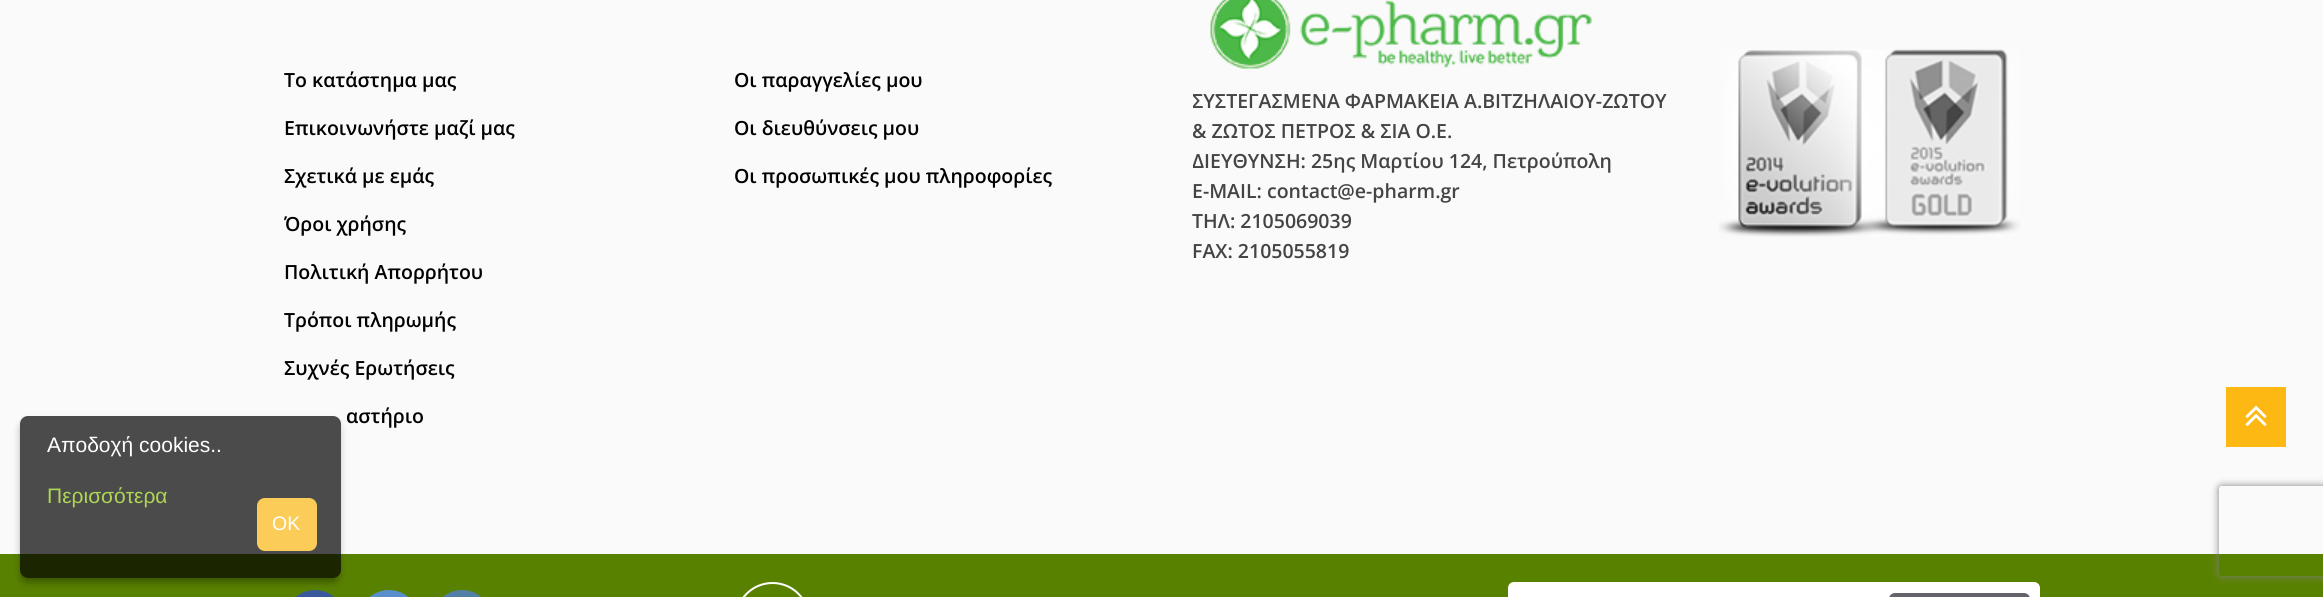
#include <cairo.h>
#include <math.h>
#include <stddef.h>


static void set_color(cairo_t *cr, unsigned color) {
    cairo_set_source_rgb(cr, (color >> 16) / 255.0, (color >> 8 & 255) / 255.0, (color & 255) / 255.0);
}

static void draw_text(cairo_t *cr, double x, double y, const char *s, const char *family, double size, int italic, int bold, unsigned color) {
    cairo_select_font_face(cr, family, italic ? CAIRO_FONT_SLANT_ITALIC : CAIRO_FONT_SLANT_NORMAL,
        bold ? CAIRO_FONT_WEIGHT_BOLD : CAIRO_FONT_WEIGHT_NORMAL);
    cairo_set_font_size(cr, size);
    set_color(cr, color);
    cairo_move_to(cr, x, y);
    cairo_show_text(cr, s);
}

static void fill_rect(cairo_t *cr, double x, double y, double w, double h, unsigned color) {
    set_color(cr, color);
    cairo_rectangle(cr, x, y, w, h);
    cairo_fill(cr);
}

static void rounded_rect(cairo_t *cr, double x, double y, double w, double h, double r) {
    cairo_new_sub_path(cr);
    cairo_arc(cr, x + w - r, y + h - r, r, 0, M_PI / 2);
    cairo_arc(cr, x + r, y + h - r, r, M_PI / 2, M_PI);
    cairo_arc(cr, x + r, y + r, r, M_PI, 1.5 * M_PI);
    cairo_arc(cr, x + w - r, y + r, r, 1.5 * M_PI, 2 * M_PI);
    cairo_close_path(cr);
}

static void draw_shadow(cairo_t *cr, double x, double y, double w, double h, double r, double blur, double alpha) {
    cairo_push_group_with_content(cr, CAIRO_CONTENT_ALPHA);
    cairo_set_operator(cr, CAIRO_OPERATOR_SOURCE);
    for (int i = 15; i >= -15 && fmin(w, h) + blur * i / 3 > 0; i -= 2) {
        double e = blur * i / 6;
        cairo_set_source_rgba(cr, 0, 0, 0, alpha * erfc((i - 1) / 8.5) / 2);
        rounded_rect(cr, x - e, y - e, w + 2 * e, h + 2 * e, fmax(0, fmin(r + e + blur * .6, fmin(w, h) / 2 + e)));
        cairo_fill(cr);
    }
    cairo_pattern_t *soft = cairo_pop_group(cr);
    cairo_mask(cr, soft);
    cairo_pattern_destroy(soft);
}

static void draw_image(cairo_t *cr, const char *path, double x, double y, double w, double h) {
    cairo_surface_t *image = cairo_image_surface_create_from_png(path);
    cairo_save(cr);
    cairo_set_source_surface(cr, image, x, y);
    cairo_rectangle(cr, x, y, w, h);
    cairo_fill(cr);
    cairo_restore(cr);
    cairo_surface_destroy(image);
}

int main(void) {
    cairo_surface_t *surface = cairo_image_surface_create(CAIRO_FORMAT_RGB24, 2323, 597);
    cairo_t *cr = cairo_create(surface);
    cairo_font_options_t *options = cairo_font_options_create();
    cairo_font_options_set_hint_metrics(options, CAIRO_HINT_METRICS_OFF);
    cairo_font_options_set_hint_style(options, CAIRO_HINT_STYLE_NONE);
    cairo_set_font_options(cr, options);
    cairo_set_miter_limit(cr, 4);
    set_color(cr, 0xFAFAFA);
    cairo_paint(cr);
    draw_text(cr, 284, 87, "Το κατάστημα μας", "Open Sans SemiBold", 19.5, 0, 0, 0x000000);
    draw_text(cr, 284, 135, "Επικοινωνήστε μαζί μας", "Open Sans SemiBold", 19.5, 0, 0, 0x000000);
    draw_text(cr, 284, 183, "Σχετικά με εμάς", "Open Sans SemiBold", 19.5, 0, 0, 0x000000);
    draw_text(cr, 284, 231, "Όροι χρήσης", "Open Sans SemiBold", 19.5, 0, 0, 0x000000);
    draw_text(cr, 284, 279, "Πολιτική Απορρήτου", "Open Sans SemiBold", 19.5, 0, 0, 0x000000);
    draw_text(cr, 284, 327, "Τρόποι πληρωμής", "Open Sans SemiBold", 19.5, 0, 0, 0x000000);
    draw_text(cr, 284, 375, "Συχνές Ερωτήσεις", "Open Sans SemiBold", 19.5, 0, 0, 0x000000);
    draw_text(cr, 346, 423, "αστήριο", "Open Sans SemiBold", 19.5, 0, 0, 0x000000);
    draw_text(cr, 734, 87, "Οι παραγγελίες μου", "Open Sans SemiBold", 19.5, 0, 0, 0x000000);
    draw_text(cr, 734, 135, "Οι διευθύνσεις μου", "Open Sans SemiBold", 19.5, 0, 0, 0x000000);
    draw_text(cr, 734, 183, "Οι προσωπικές μου πληροφορίες", "Open Sans SemiBold", 19.5, 0, 0, 0x000000);
    draw_image(cr, "assets/img1.png", 1210, 0, 382, 69);
    cairo_save(cr);
    cairo_rectangle(cr, 1193, 86, 474, 30);
    cairo_clip(cr);
    draw_text(cr, 1192, 108, "ΣΥΣΤΕΓΑΣΜΕΝΑ ΦΑΡΜΑΚΕΙΑ Α.ΒΙΤΖΗΛΑΙΟΥ-ΖΩΤΟΥ", "Open Sans SemiBold", 19.5, 0, 0, 0x444444);
    cairo_restore(cr);
    cairo_save(cr);
    cairo_rectangle(cr, 1193, 116, 474, 30);
    cairo_clip(cr);
    draw_text(cr, 1192, 138, "& ΖΩΤΟΣ ΠΕΤΡΟΣ & ΣΙΑ Ο.Ε.", "Open Sans SemiBold", 19.5, 0, 0, 0x444444);
    cairo_restore(cr);
    cairo_save(cr);
    cairo_rectangle(cr, 1193, 146, 474, 30);
    cairo_clip(cr);
    draw_text(cr, 1192, 168, "ΔΙΕΥΘΥΝΣΗ: 25ης Μαρτίου 124, Πετρούπολη", "Open Sans SemiBold", 19.5, 0, 0, 0x444444);
    cairo_restore(cr);
    draw_text(cr, 1192, 198, "E-MAIL: contact@e-pharm.gr", "Open Sans SemiBold", 19.5, 0, 0, 0x444444);
    draw_text(cr, 1192, 228, "ΤΗΛ: 2105069039", "Open Sans SemiBold", 19.5, 0, 0, 0x444444);
    draw_text(cr, 1192, 258, "FAX: 2105055819", "Open Sans SemiBold", 19.5, 0, 0, 0x444444);
    draw_image(cr, "assets/img2.png", 1718, 49, 302, 188);
    fill_rect(cr, 0, 554, 2323, 43, 0x598100);
    set_color(cr, 0x3A599C);
    rounded_rect(cr, 285, 590, 60, 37, 30);
    cairo_fill(cr);
    set_color(cr, 0x5A8ECA);
    rounded_rect(cr, 359, 590, 60, 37, 30);
    cairo_fill(cr);
    set_color(cr, 0x527FA6);
    rounded_rect(cr, 432, 590, 60, 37, 30);
    cairo_fill(cr);
    rounded_rect(cr, 736, 583, 73, 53, 36.5);
    set_color(cr, 0xFFFFFF);
    cairo_stroke(cr);
    rounded_rect(cr, 1508, 582, 532, 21, 6);
    cairo_fill(cr);
    set_color(cr, 0x63636C);
    rounded_rect(cr, 1889, 593, 141, 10, 6);
    cairo_fill(cr);
    fill_rect(cr, 2226, 387, 60, 60, 0xFDB813);
    draw_image(cr, "assets/img3.png", 2245, 405, 22, 21);
    cairo_save(cr);
    cairo_set_fill_rule(cr, CAIRO_FILL_RULE_EVEN_ODD);
    cairo_new_path(cr);
    cairo_move_to(cr, 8, 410);
    cairo_line_to(cr, 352, 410);
    cairo_line_to(cr, 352, 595);
    cairo_line_to(cr, 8, 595);
    cairo_close_path(cr);
    cairo_move_to(cr, 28, 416);
    cairo_line_to(cr, 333, 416);
    cairo_curve_to(cr, 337.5, 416, 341, 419.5, 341, 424);
    cairo_line_to(cr, 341, 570);
    cairo_curve_to(cr, 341, 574.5, 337.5, 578, 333, 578);
    cairo_line_to(cr, 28, 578);
    cairo_curve_to(cr, 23.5, 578, 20, 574.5, 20, 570);
    cairo_line_to(cr, 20, 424);
    cairo_curve_to(cr, 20, 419.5, 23.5, 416, 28, 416);
    cairo_close_path(cr);
    cairo_clip(cr);
    set_color(cr, 0x000000);
    draw_shadow(cr, 21, 423, 318, 159, 6, 4, 0.35);
    cairo_restore(cr);
    cairo_set_source_rgba(cr, 0, 0, 0, 0.7);
    rounded_rect(cr, 20, 416, 321, 162, 8);
    cairo_fill(cr);
    draw_text(cr, 47, 452, "Αποδοχή cookies..", "Liberation Sans", 21, 0, 0, 0xFEFEFE);
    draw_text(cr, 47, 503, "Περισσότερα", "Liberation Sans", 21, 0, 0, 0xAED656);
    set_color(cr, 0xFCCC58);
    rounded_rect(cr, 257, 498, 60, 53, 8);
    cairo_fill(cr);
    draw_text(cr, 272, 530, "OK", "Liberation Sans", 19.5, 0, 0, 0xFEFEFE);
    cairo_save(cr);
    cairo_set_fill_rule(cr, CAIRO_FILL_RULE_EVEN_ODD);
    cairo_new_path(cr);
    cairo_move_to(cr, 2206, 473);
    cairo_line_to(cr, 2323, 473);
    cairo_line_to(cr, 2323, 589);
    cairo_line_to(cr, 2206, 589);
    cairo_close_path(cr);
    cairo_move_to(cr, 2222, 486);
    cairo_line_to(cr, 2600, 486);
    cairo_curve_to(cr, 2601.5, 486, 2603, 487.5, 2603, 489);
    cairo_line_to(cr, 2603, 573);
    cairo_curve_to(cr, 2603, 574.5, 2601.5, 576, 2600, 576);
    cairo_line_to(cr, 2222, 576);
    cairo_curve_to(cr, 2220.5, 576, 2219, 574.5, 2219, 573);
    cairo_line_to(cr, 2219, 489);
    cairo_curve_to(cr, 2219, 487.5, 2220.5, 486, 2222, 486);
    cairo_close_path(cr);
    cairo_clip(cr);
    set_color(cr, 0x808080);
    draw_shadow(cr, 2219, 486, 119, 90, 3, 4, 1);
    cairo_restore(cr);
    cairo_surface_write_to_png(surface, "output.png");
    cairo_font_options_destroy(options);
    cairo_destroy(cr);
    cairo_surface_destroy(surface);
    return 0;
}
